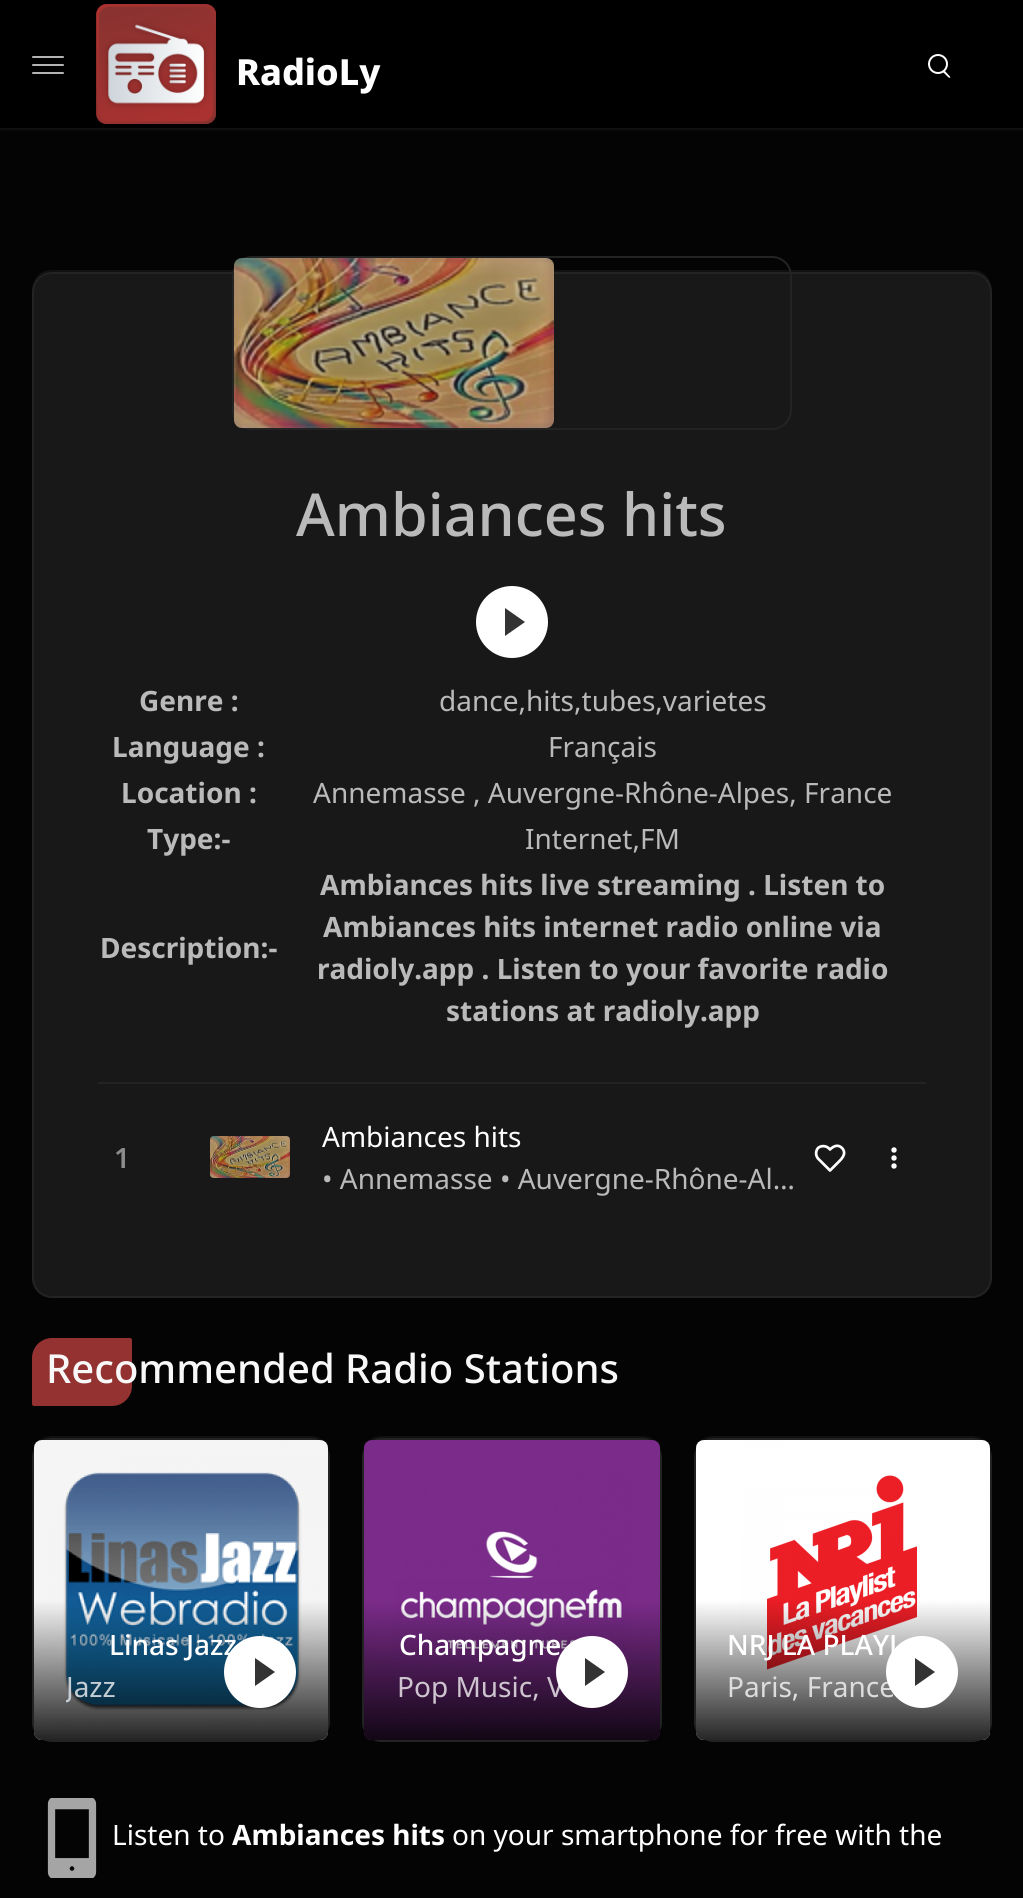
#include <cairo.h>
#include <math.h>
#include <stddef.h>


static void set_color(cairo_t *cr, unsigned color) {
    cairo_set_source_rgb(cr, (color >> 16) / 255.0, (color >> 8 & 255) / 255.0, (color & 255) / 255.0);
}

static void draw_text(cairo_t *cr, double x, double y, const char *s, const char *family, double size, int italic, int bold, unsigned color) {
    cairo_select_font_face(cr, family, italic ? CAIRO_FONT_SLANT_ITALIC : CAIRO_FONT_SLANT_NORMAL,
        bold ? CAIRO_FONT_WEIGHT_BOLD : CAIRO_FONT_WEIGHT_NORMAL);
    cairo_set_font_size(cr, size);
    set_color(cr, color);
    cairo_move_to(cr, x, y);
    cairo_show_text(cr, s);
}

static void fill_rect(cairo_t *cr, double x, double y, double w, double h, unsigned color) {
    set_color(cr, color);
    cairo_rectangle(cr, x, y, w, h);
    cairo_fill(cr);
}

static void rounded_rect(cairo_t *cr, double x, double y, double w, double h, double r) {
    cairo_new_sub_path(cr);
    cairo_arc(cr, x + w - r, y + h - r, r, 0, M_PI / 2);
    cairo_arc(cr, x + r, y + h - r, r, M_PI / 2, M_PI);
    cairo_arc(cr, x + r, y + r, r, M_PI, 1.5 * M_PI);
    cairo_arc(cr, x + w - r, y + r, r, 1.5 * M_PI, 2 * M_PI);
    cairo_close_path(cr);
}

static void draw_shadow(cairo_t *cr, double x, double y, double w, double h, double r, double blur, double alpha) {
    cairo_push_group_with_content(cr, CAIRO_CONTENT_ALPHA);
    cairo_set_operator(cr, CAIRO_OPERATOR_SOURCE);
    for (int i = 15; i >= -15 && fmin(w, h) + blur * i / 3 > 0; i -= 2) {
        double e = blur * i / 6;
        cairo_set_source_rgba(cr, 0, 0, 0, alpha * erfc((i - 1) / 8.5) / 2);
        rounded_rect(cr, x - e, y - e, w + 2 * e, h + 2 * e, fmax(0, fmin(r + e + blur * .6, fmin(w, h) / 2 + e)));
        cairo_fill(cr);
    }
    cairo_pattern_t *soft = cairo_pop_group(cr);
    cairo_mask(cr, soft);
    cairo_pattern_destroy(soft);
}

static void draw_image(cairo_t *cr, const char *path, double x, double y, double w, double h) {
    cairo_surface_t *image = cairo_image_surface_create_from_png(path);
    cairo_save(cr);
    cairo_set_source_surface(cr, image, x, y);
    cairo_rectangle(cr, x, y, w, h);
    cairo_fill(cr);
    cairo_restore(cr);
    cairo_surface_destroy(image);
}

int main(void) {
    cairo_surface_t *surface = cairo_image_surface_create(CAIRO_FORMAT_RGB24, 1023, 1898);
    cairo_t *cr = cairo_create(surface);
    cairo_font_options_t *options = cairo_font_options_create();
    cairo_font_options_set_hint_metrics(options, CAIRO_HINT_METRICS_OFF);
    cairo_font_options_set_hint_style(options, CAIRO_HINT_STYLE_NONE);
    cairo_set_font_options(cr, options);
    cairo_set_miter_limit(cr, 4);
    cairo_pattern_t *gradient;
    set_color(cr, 0x040404);
    cairo_paint(cr);
    set_color(cr, 0x828C96);
    draw_shadow(cr, 0, 2, 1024, 128, 0, 1, 0.1);
    fill_rect(cr, 0, 0, 1023, 128, 0x000000);
    set_color(cr, 0xB3B3B3);
    rounded_rect(cr, 32, 56, 32, 2, 1);
    cairo_fill(cr);
    rounded_rect(cr, 32, 64, 32, 2, 1);
    cairo_fill(cr);
    rounded_rect(cr, 32, 72, 32, 2, 1);
    cairo_fill(cr);
    draw_image(cr, "assets/img1.png", 96, 4, 120, 120);
    draw_text(cr, 236, 85, "RadioLy", "Noto Sans ExtraBold", 36, 0, 0, 0xFFFFFF);
    cairo_new_path(cr);
    cairo_arc(cr, 938, 64, 9, 0, 2 * M_PI);
    cairo_stroke(cr);
    cairo_new_path(cr);
    cairo_move_to(cr, 944.5, 70.5);
    cairo_line_to(cr, 949, 75.5);
    cairo_curve_to(cr, 951.5, 77.5, 950, 79, 947.5, 76.5);
    cairo_line_to(cr, 945, 74);
    cairo_curve_to(cr, 944.5, 73.5, 941.5, 71.5, 943, 70.5);
    cairo_curve_to(cr, 943.5, 70, 944, 70, 944.5, 70.5);
    cairo_close_path(cr);
    cairo_fill(cr);
    set_color(cr, 0x101112);
    cairo_new_path(cr);
    cairo_move_to(cr, 52, 270);
    cairo_curve_to(cr, 39, 270, 32, 280, 32, 292);
    cairo_curve_to(cr, 32, 281, 41, 272, 52, 272);
    cairo_line_to(cr, 972, 272);
    cairo_curve_to(cr, 983, 272, 992, 281, 992, 292);
    cairo_curve_to(cr, 992, 280, 985, 270, 972, 270);
    cairo_close_path(cr);
    cairo_fill(cr);
    set_color(cr, 0x191818);
    rounded_rect(cr, 33, 273, 958, 1024, 19);
    cairo_fill_preserve(cr);
    set_color(cr, 0x232323);
    cairo_stroke(cr);
    rounded_rect(cr, 233, 257, 558, 172, 19);
    cairo_stroke(cr);
    draw_image(cr, "assets/img2.png", 234, 258, 320, 170);
    draw_text(cr, 296, 536, "Ambiances hits", "Noto Sans Medium", 59.25, 0, 0, 0xBABABA);
    set_color(cr, 0xFFFFFF);
    cairo_new_path(cr);
    cairo_arc(cr, 512, 622, 36, 0, 2 * M_PI);
    cairo_fill(cr);
    set_color(cr, 0x333333);
    cairo_new_path(cr);
    cairo_move_to(cr, 505, 636);
    cairo_line_to(cr, 505, 608);
    cairo_line_to(cr, 525, 622);
    cairo_close_path(cr);
    cairo_fill(cr);
    draw_text(cr, 139, 711, "Genre :", "Noto Sans", 28, 0, 1, 0xBABABA);
    draw_text(cr, 439, 711, "dance,hits,tubes,varietes", "Noto Sans", 28, 0, 0, 0xBABABA);
    draw_text(cr, 112, 757, "Language :", "Noto Sans", 28, 0, 1, 0xBABABA);
    draw_text(cr, 548, 757, "Français", "Noto Sans", 28, 0, 0, 0xBABABA);
    draw_text(cr, 121, 803, "Location :", "Noto Sans", 28, 0, 1, 0xBABABA);
    draw_text(cr, 313, 803, "Annemasse , Auvergne-Rhône-Alpes, France", "Noto Sans", 28, 0, 0, 0xBABABA);
    draw_text(cr, 147, 849, "Type:-", "Noto Sans", 28, 0, 1, 0xBABABA);
    draw_text(cr, 525, 849, "Internet,FM", "Noto Sans", 28, 0, 0, 0xBABABA);
    draw_text(cr, 100, 958, "Description:-", "Noto Sans", 28, 0, 1, 0xBABABA);
    draw_text(cr, 320, 895, "Ambiances hits live streaming . Listen to", "Noto Sans", 28, 0, 1, 0xBABABA);
    draw_text(cr, 323, 937, "Ambiances hits internet radio online via", "Noto Sans", 28, 0, 1, 0xBABABA);
    draw_text(cr, 317, 979, "radioly.app . Listen to your favorite radio", "Noto Sans", 28, 0, 1, 0xBABABA);
    draw_text(cr, 446, 1021, "stations at radioly.app", "Noto Sans", 28, 0, 1, 0xBABABA);
    fill_rect(cr, 98, 1082, 828, 2, 0x232324);
    draw_text(cr, 114, 1168, "1", "Noto Sans SemiBold", 28, 0, 0, 0x8C8C8C);
    draw_image(cr, "assets/img3.png", 210, 1136, 80, 42);
    draw_text(cr, 322, 1147, "Ambiances hits", "Noto Sans", 28, 0, 0, 0xFFFFFF);
    draw_text(cr, 322, 1189, "• Annemasse • Auvergne-Rhône-Al…", "Noto Sans", 28, 0, 0, 0xBABABA);
    cairo_new_path(cr);
    cairo_move_to(cr, 842, 1148);
    cairo_curve_to(cr, 838, 1144, 833.5, 1146, 830, 1149.5);
    cairo_line_to(cr, 828.5, 1148);
    cairo_curve_to(cr, 825.5, 1145.5, 821, 1145.5, 818, 1148);
    cairo_curve_to(cr, 815.5, 1151, 815.5, 1155.5, 818, 1158.5);
    cairo_line_to(cr, 830, 1170.5);
    cairo_line_to(cr, 837, 1163.5);
    cairo_curve_to(cr, 841, 1159.5, 847.5, 1154, 842, 1148);
    cairo_close_path(cr);
    set_color(cr, 0xFFFFFF);
    cairo_set_line_width(cr, 2.7);
    cairo_set_line_cap(cr, CAIRO_LINE_CAP_ROUND);
    cairo_set_line_join(cr, CAIRO_LINE_JOIN_ROUND);
    cairo_stroke(cr);
    cairo_arc(cr, 894, 1158, 2.7, 0, 2 * M_PI);
    cairo_fill(cr);
    cairo_arc(cr, 894, 1150, 2.7, 0, 2 * M_PI);
    cairo_fill(cr);
    cairo_arc(cr, 894, 1166, 2.7, 0, 2 * M_PI);
    cairo_fill(cr);
    set_color(cr, 0x933230);
    cairo_new_path(cr);
    cairo_move_to(cr, 52, 1338);
    cairo_line_to(cr, 130, 1338);
    cairo_curve_to(cr, 131, 1338, 132, 1339, 132, 1340);
    cairo_line_to(cr, 132, 1386);
    cairo_curve_to(cr, 132, 1397, 123, 1406, 112, 1406);
    cairo_line_to(cr, 34, 1406);
    cairo_curve_to(cr, 33, 1406, 32, 1405, 32, 1404);
    cairo_line_to(cr, 32, 1358);
    cairo_curve_to(cr, 32, 1347, 41, 1338, 52, 1338);
    cairo_close_path(cr);
    cairo_fill(cr);
    draw_text(cr, 46, 1383, "Recommended Radio Stations", "Noto Sans Medium", 40, 0, 0, 0xF8F8F8);
    set_color(cr, 0x101112);
    cairo_new_path(cr);
    cairo_move_to(cr, 52, 1436);
    cairo_curve_to(cr, 39, 1436, 32, 1446, 32, 1458);
    cairo_curve_to(cr, 32, 1447, 41, 1438, 52, 1438);
    cairo_line_to(cr, 310, 1438);
    cairo_curve_to(cr, 321, 1438, 330, 1447, 330, 1458);
    cairo_curve_to(cr, 330, 1446, 323, 1436, 310, 1436);
    cairo_close_path(cr);
    cairo_fill(cr);
    rounded_rect(cr, 33, 1439, 296, 302, 19);
    set_color(cr, 0x232323);
    cairo_set_line_width(cr, 2);
    cairo_set_line_cap(cr, CAIRO_LINE_CAP_BUTT);
    cairo_set_line_join(cr, CAIRO_LINE_JOIN_MITER);
    cairo_stroke(cr);
    draw_image(cr, "assets/img4.png", 34, 1440, 294, 300);
    gradient = cairo_pattern_create_linear(181, 1600, 181, 1740);
    cairo_pattern_add_color_stop_rgba(gradient, 0, 0, 0, 0, 0);
    cairo_pattern_add_color_stop_rgba(gradient, 1, 0, 0, 0, 0.85);
    cairo_set_source(cr, gradient);
    cairo_pattern_destroy(gradient);
    cairo_new_path(cr);
    cairo_move_to(cr, 34, 1600);
    cairo_line_to(cr, 328, 1600);
    cairo_line_to(cr, 328, 1732);
    cairo_curve_to(cr, 328, 1736.5, 324.5, 1740, 320, 1740);
    cairo_line_to(cr, 42, 1740);
    cairo_curve_to(cr, 37.5, 1740, 34, 1736.5, 34, 1732);
    cairo_close_path(cr);
    cairo_fill(cr);
    set_color(cr, 0xFFFFFF);
    cairo_arc(cr, 260, 1672, 36, 0, 2 * M_PI);
    cairo_fill(cr);
    set_color(cr, 0x333333);
    cairo_new_path(cr);
    cairo_move_to(cr, 255, 1686);
    cairo_line_to(cr, 255, 1658);
    cairo_line_to(cr, 275, 1672);
    cairo_close_path(cr);
    cairo_fill(cr);
    draw_text(cr, 109, 1655, "Linas Jazz", "Noto Sans Medium", 28, 0, 0, 0xFFFFFF);
    cairo_save(cr);
    cairo_rectangle(cr, 66, 1666, 214, 42);
    cairo_clip(cr);
    draw_text(cr, 66, 1697, "Jazz", "Noto Sans", 28, 0, 0, 0xC5CED4);
    cairo_restore(cr);
    set_color(cr, 0x101112);
    cairo_new_path(cr);
    cairo_move_to(cr, 382, 1436);
    cairo_curve_to(cr, 369, 1436, 362, 1446, 362, 1458);
    cairo_curve_to(cr, 362, 1447, 371, 1438, 382, 1438);
    cairo_line_to(cr, 642, 1438);
    cairo_curve_to(cr, 653, 1438, 662, 1447, 662, 1458);
    cairo_curve_to(cr, 662, 1446, 655, 1436, 642, 1436);
    cairo_close_path(cr);
    cairo_fill(cr);
    rounded_rect(cr, 363, 1439, 298, 302, 19);
    set_color(cr, 0x232323);
    cairo_stroke(cr);
    draw_image(cr, "assets/img5.png", 364, 1440, 296, 300);
    gradient = cairo_pattern_create_linear(512, 1600, 512, 1740);
    cairo_pattern_add_color_stop_rgba(gradient, 0, 0, 0, 0, 0);
    cairo_pattern_add_color_stop_rgba(gradient, 1, 0, 0, 0, 0.85);
    cairo_set_source(cr, gradient);
    cairo_pattern_destroy(gradient);
    cairo_new_path(cr);
    cairo_move_to(cr, 364, 1600);
    cairo_line_to(cr, 660, 1600);
    cairo_line_to(cr, 660, 1732);
    cairo_curve_to(cr, 660, 1736.5, 656.5, 1740, 652, 1740);
    cairo_line_to(cr, 372, 1740);
    cairo_curve_to(cr, 367.5, 1740, 364, 1736.5, 364, 1732);
    cairo_close_path(cr);
    cairo_fill(cr);
    draw_text(cr, 397, 1697, "Pop Music, V", "Noto Sans", 28, 0, 0, 0xCDC4CF);
    set_color(cr, 0xFFFFFF);
    cairo_new_path(cr);
    cairo_arc(cr, 592, 1672, 36, 0, 2 * M_PI);
    cairo_fill(cr);
    set_color(cr, 0x333333);
    cairo_new_path(cr);
    cairo_move_to(cr, 585, 1686);
    cairo_line_to(cr, 585, 1658);
    cairo_line_to(cr, 605, 1672);
    cairo_close_path(cr);
    cairo_fill(cr);
    draw_text(cr, 399, 1655, "Champagne", "Noto Sans Medium", 28, 0, 0, 0xFFFFFF);
    set_color(cr, 0x101112);
    cairo_new_path(cr);
    cairo_move_to(cr, 714, 1436);
    cairo_curve_to(cr, 701, 1436, 694, 1446, 694, 1458);
    cairo_curve_to(cr, 694, 1447, 703, 1438, 714, 1438);
    cairo_line_to(cr, 972, 1438);
    cairo_curve_to(cr, 983, 1438, 992, 1447, 992, 1458);
    cairo_curve_to(cr, 992, 1446, 985, 1436, 972, 1436);
    cairo_close_path(cr);
    cairo_fill(cr);
    rounded_rect(cr, 695, 1439, 296, 302, 19);
    set_color(cr, 0x232323);
    cairo_stroke(cr);
    draw_image(cr, "assets/img6.png", 696, 1440, 294, 300);
    gradient = cairo_pattern_create_linear(843, 1600, 843, 1740);
    cairo_pattern_add_color_stop_rgba(gradient, 0, 0, 0, 0, 0);
    cairo_pattern_add_color_stop_rgba(gradient, 1, 0, 0, 0, 0.85);
    cairo_set_source(cr, gradient);
    cairo_pattern_destroy(gradient);
    cairo_new_path(cr);
    cairo_move_to(cr, 696, 1600);
    cairo_line_to(cr, 990, 1600);
    cairo_line_to(cr, 990, 1732);
    cairo_curve_to(cr, 990, 1736.5, 986.5, 1740, 982, 1740);
    cairo_line_to(cr, 704, 1740);
    cairo_curve_to(cr, 699.5, 1740, 696, 1736.5, 696, 1732);
    cairo_close_path(cr);
    cairo_fill(cr);
    draw_text(cr, 727, 1697, "Paris, France", "Noto Sans", 28, 0, 0, 0xDDDDDD);
    set_color(cr, 0xFFFFFF);
    cairo_new_path(cr);
    cairo_arc(cr, 922, 1672, 36, 0, 2 * M_PI);
    cairo_fill(cr);
    set_color(cr, 0x333333);
    cairo_new_path(cr);
    cairo_move_to(cr, 915, 1686);
    cairo_line_to(cr, 915, 1658);
    cairo_line_to(cr, 935, 1672);
    cairo_close_path(cr);
    cairo_fill(cr);
    draw_text(cr, 727, 1655, "NRJ LA PLAYL", "Noto Sans Medium", 28, 0, 0, 0xFFFFFF);
    draw_image(cr, "assets/img7.png", 47, 1798, 50, 80);
    draw_text(cr, 112, 1845, "Listen to", "Noto Sans", 28, 0, 0, 0xFFFFFF);
    draw_text(cr, 232, 1845, "Ambiances hits", "Noto Sans", 28, 0, 1, 0xFFFFFF);
    draw_text(cr, 452, 1845, "on your smartphone for free with the", "Noto Sans", 28, 0, 0, 0xFFFFFF);
    cairo_surface_write_to_png(surface, "output.png");
    cairo_font_options_destroy(options);
    cairo_destroy(cr);
    cairo_surface_destroy(surface);
    return 0;
}
